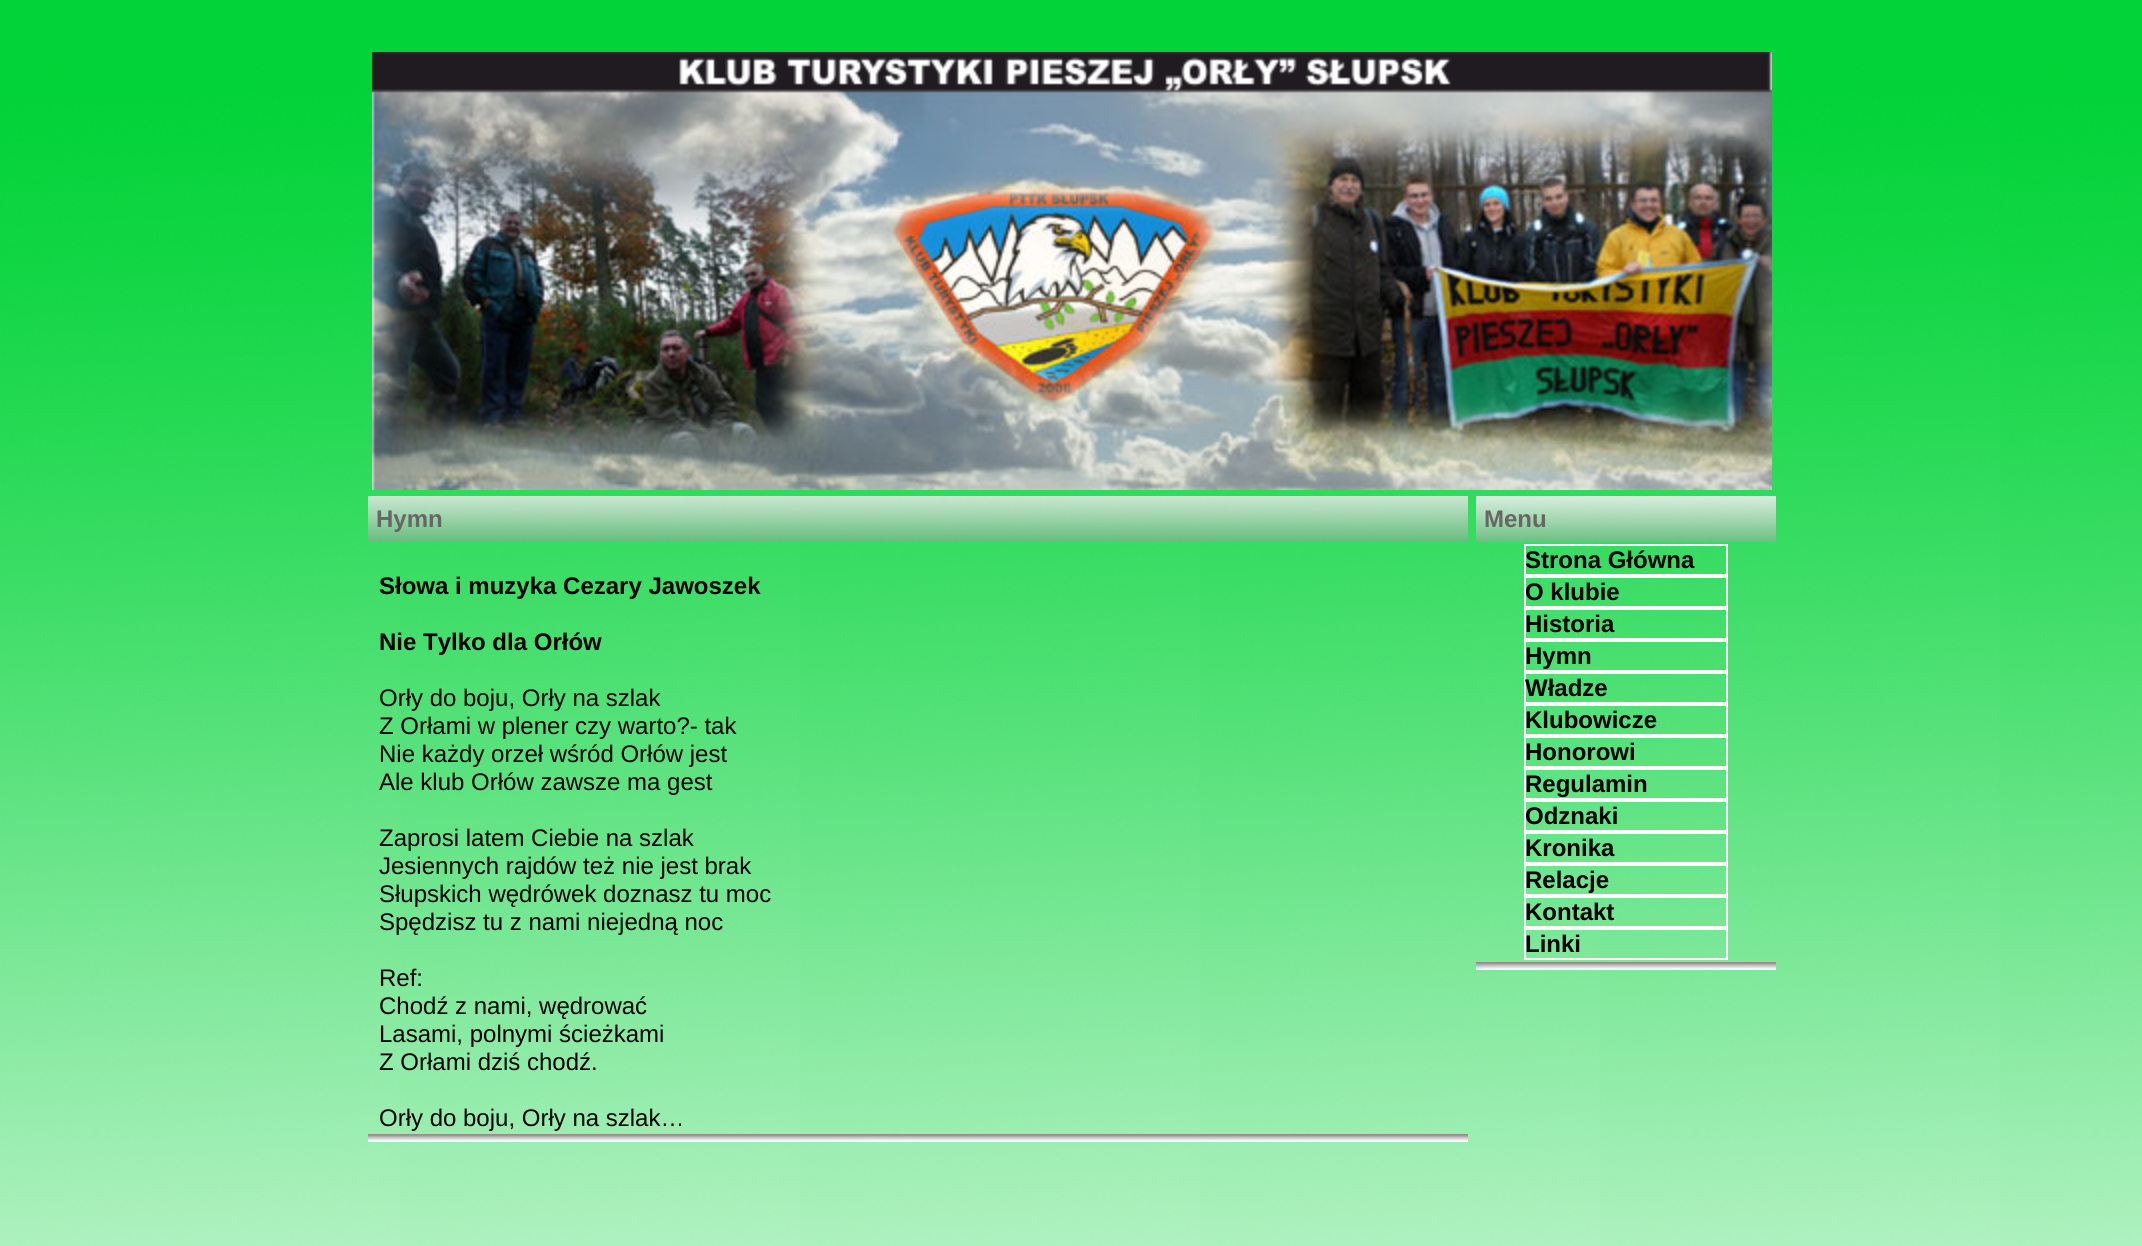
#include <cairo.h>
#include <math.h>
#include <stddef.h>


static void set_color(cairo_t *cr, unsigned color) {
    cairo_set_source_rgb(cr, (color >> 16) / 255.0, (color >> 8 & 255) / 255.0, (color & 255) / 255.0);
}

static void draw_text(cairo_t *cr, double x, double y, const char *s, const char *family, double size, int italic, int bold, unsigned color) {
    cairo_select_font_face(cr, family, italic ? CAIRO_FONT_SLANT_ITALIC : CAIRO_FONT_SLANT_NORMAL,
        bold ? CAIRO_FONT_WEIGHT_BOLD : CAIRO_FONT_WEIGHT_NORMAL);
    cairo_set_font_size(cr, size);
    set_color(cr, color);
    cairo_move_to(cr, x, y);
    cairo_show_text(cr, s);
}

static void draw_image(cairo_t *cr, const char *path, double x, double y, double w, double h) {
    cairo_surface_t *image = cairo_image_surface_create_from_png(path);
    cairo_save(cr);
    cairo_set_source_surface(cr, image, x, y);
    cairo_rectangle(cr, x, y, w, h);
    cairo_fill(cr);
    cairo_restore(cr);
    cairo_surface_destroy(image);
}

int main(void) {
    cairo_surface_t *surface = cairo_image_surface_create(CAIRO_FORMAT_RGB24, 2142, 1246);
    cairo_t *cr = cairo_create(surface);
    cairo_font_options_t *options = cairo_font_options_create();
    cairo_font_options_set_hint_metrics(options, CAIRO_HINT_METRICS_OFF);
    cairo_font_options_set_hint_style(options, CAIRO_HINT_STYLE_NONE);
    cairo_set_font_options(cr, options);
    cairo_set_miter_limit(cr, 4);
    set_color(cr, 0xFFFFFF);
    cairo_paint(cr);
    draw_image(cr, "assets/img1.png", 0, 0, 2142, 1246);
    draw_image(cr, "assets/img2.png", 372, 52, 1400, 438);
    draw_image(cr, "assets/img3.png", 368, 496, 1100, 46);
    draw_text(cr, 376, 527, "Hymn", "Liberation Sans", 24, 0, 1, 0x666666);
    draw_text(cr, 379, 594, "Słowa i muzyka Cezary Jawoszek", "Liberation Sans", 24, 0, 1, 0x000000);
    draw_text(cr, 379, 650, "Nie Tylko dla Orłów", "Liberation Sans", 24, 0, 1, 0x000000);
    draw_text(cr, 379, 706, "Orły do boju, Orły na szlak", "Liberation Sans", 24, 0, 0, 0x000000);
    draw_text(cr, 379, 734, "Z Orłami w plener czy warto?- tak", "Liberation Sans", 24, 0, 0, 0x000000);
    draw_text(cr, 379, 762, "Nie każdy orzeł wśród Orłów jest", "Liberation Sans", 24, 0, 0, 0x000000);
    draw_text(cr, 379, 790, "Ale klub Orłów zawsze ma gest", "Liberation Sans", 24, 0, 0, 0x000000);
    draw_text(cr, 379, 846, "Zaprosi latem Ciebie na szlak", "Liberation Sans", 24, 0, 0, 0x000000);
    draw_text(cr, 379, 874, "Jesiennych rajdów też nie jest brak", "Liberation Sans", 24, 0, 0, 0x000000);
    draw_text(cr, 379, 902, "Słupskich wędrówek doznasz tu moc", "Liberation Sans", 24, 0, 0, 0x000000);
    draw_text(cr, 379, 930, "Spędzisz tu z nami niejedną noc", "Liberation Sans", 24, 0, 0, 0x000000);
    draw_text(cr, 379, 986, "Ref:", "Liberation Sans", 24, 0, 0, 0x000000);
    draw_text(cr, 379, 1014, "Chodź z nami, wędrować", "Liberation Sans", 24, 0, 0, 0x000000);
    draw_text(cr, 379, 1042, "Lasami, polnymi ścieżkami", "Liberation Sans", 24, 0, 0, 0x000000);
    draw_text(cr, 379, 1070, "Z Orłami dziś chodź.", "Liberation Sans", 24, 0, 0, 0x000000);
    draw_text(cr, 379, 1126, "Orły do boju, Orły na szlak…", "Liberation Sans", 24, 0, 0, 0x000000);
    draw_image(cr, "assets/img4.png", 368, 1134, 1100, 8);
    draw_image(cr, "assets/img5.png", 1476, 496, 300, 46);
    draw_text(cr, 1484, 527, "Menu", "Liberation Sans", 24, 0, 1, 0x666666);
    cairo_rectangle(cr, 1525, 545, 202, 30);
    set_color(cr, 0xFFFFFF);
    cairo_stroke(cr);
    draw_text(cr, 1525, 568, "Strona Główna", "Liberation Sans", 24, 0, 1, 0x000000);
    cairo_rectangle(cr, 1525, 577, 202, 30);
    set_color(cr, 0xFFFFFF);
    cairo_stroke(cr);
    draw_text(cr, 1525, 600, "O klubie", "Liberation Sans", 24, 0, 1, 0x000000);
    cairo_rectangle(cr, 1525, 609, 202, 30);
    set_color(cr, 0xFFFFFF);
    cairo_stroke(cr);
    draw_text(cr, 1525, 632, "Historia", "Liberation Sans", 24, 0, 1, 0x000000);
    cairo_rectangle(cr, 1525, 641, 202, 30);
    set_color(cr, 0xFFFFFF);
    cairo_stroke(cr);
    draw_text(cr, 1525, 664, "Hymn", "Liberation Sans", 24, 0, 1, 0x000000);
    cairo_rectangle(cr, 1525, 673, 202, 30);
    set_color(cr, 0xFFFFFF);
    cairo_stroke(cr);
    draw_text(cr, 1525, 696, "Władze", "Liberation Sans", 24, 0, 1, 0x000000);
    cairo_rectangle(cr, 1525, 705, 202, 30);
    set_color(cr, 0xFFFFFF);
    cairo_stroke(cr);
    draw_text(cr, 1525, 728, "Klubowicze", "Liberation Sans", 24, 0, 1, 0x000000);
    cairo_rectangle(cr, 1525, 737, 202, 30);
    set_color(cr, 0xFFFFFF);
    cairo_stroke(cr);
    draw_text(cr, 1525, 760, "Honorowi", "Liberation Sans", 24, 0, 1, 0x000000);
    cairo_rectangle(cr, 1525, 769, 202, 30);
    set_color(cr, 0xFFFFFF);
    cairo_stroke(cr);
    draw_text(cr, 1525, 792, "Regulamin", "Liberation Sans", 24, 0, 1, 0x000000);
    cairo_rectangle(cr, 1525, 801, 202, 30);
    set_color(cr, 0xFFFFFF);
    cairo_stroke(cr);
    draw_text(cr, 1525, 824, "Odznaki", "Liberation Sans", 24, 0, 1, 0x000000);
    cairo_rectangle(cr, 1525, 833, 202, 30);
    set_color(cr, 0xFFFFFF);
    cairo_stroke(cr);
    draw_text(cr, 1525, 856, "Kronika", "Liberation Sans", 24, 0, 1, 0x000000);
    cairo_rectangle(cr, 1525, 865, 202, 30);
    set_color(cr, 0xFFFFFF);
    cairo_stroke(cr);
    draw_text(cr, 1525, 888, "Relacje", "Liberation Sans", 24, 0, 1, 0x000000);
    cairo_rectangle(cr, 1525, 897, 202, 30);
    set_color(cr, 0xFFFFFF);
    cairo_stroke(cr);
    draw_text(cr, 1525, 920, "Kontakt", "Liberation Sans", 24, 0, 1, 0x000000);
    cairo_rectangle(cr, 1525, 929, 202, 30);
    set_color(cr, 0xFFFFFF);
    cairo_stroke(cr);
    draw_text(cr, 1525, 952, "Linki", "Liberation Sans", 24, 0, 1, 0x000000);
    draw_image(cr, "assets/img6.png", 1476, 962, 300, 8);
    cairo_surface_write_to_png(surface, "output.png");
    cairo_font_options_destroy(options);
    cairo_destroy(cr);
    cairo_surface_destroy(surface);
    return 0;
}
